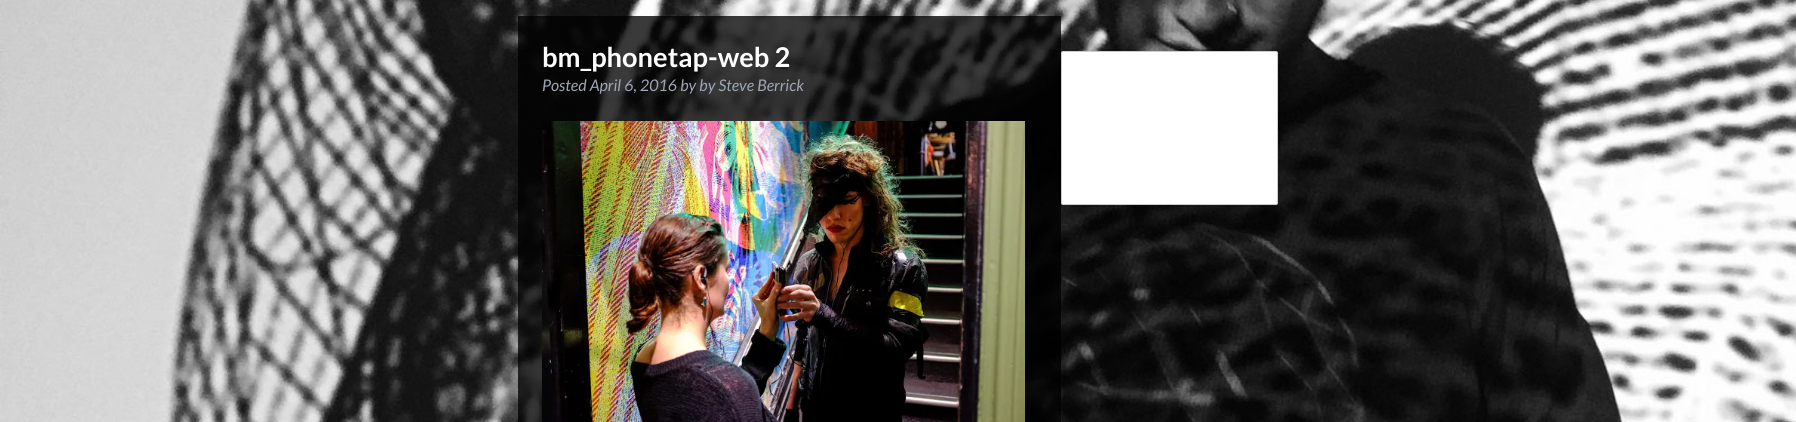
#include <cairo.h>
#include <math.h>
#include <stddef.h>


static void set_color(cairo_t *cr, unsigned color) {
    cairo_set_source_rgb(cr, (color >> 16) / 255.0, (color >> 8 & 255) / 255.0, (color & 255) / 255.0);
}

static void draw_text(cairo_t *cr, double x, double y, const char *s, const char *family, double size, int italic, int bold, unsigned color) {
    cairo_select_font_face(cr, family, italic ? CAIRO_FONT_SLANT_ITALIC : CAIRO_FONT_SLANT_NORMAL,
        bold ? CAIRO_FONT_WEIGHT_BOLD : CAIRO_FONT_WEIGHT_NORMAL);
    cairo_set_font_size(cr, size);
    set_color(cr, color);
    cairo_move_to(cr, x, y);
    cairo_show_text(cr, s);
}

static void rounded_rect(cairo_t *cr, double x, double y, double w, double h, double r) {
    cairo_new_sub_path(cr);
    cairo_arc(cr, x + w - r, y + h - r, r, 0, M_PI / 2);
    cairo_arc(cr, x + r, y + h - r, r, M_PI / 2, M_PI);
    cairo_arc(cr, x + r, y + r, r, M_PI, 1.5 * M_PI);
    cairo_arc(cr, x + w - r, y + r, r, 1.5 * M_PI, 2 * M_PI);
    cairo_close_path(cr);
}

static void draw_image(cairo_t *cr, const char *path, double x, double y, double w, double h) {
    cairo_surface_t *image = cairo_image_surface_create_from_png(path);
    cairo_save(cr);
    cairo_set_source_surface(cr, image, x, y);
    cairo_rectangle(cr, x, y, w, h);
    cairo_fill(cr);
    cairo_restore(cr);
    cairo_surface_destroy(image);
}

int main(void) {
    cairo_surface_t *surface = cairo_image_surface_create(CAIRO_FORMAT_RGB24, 1796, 422);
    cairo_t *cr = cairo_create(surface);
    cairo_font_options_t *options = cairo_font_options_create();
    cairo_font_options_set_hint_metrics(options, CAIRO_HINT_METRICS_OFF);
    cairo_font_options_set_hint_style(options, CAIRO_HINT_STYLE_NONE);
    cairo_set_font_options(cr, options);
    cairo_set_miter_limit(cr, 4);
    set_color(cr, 0xFFFFFF);
    cairo_paint(cr);
    draw_image(cr, "assets/img1.png", 0, 0, 1796, 422);
    cairo_set_source_rgba(cr, 0, 0, 0, 0.77);
    cairo_rectangle(cr, 518, 16, 543, 406);
    cairo_fill(cr);
    draw_text(cr, 542, 67, "bm_phonetap-web 2", "Lato", 27.25, 0, 1, 0xFFFFFF);
    draw_text(cr, 542, 91, "Posted April 6, 2016 by by Steve Berrick", "Lato", 16, 1, 0, 0x9FA6B4);
    draw_image(cr, "assets/img2.png", 542, 121, 483, 301);
    set_color(cr, 0xFFFFFF);
    rounded_rect(cr, 1061.5, 51.5, 216, 153, 1.5);
    cairo_fill_preserve(cr);
    set_color(cr, 0xCCCCCC);
    cairo_set_line_width(cr, 1);
    cairo_stroke(cr);
    cairo_surface_write_to_png(surface, "output.png");
    cairo_font_options_destroy(options);
    cairo_destroy(cr);
    cairo_surface_destroy(surface);
    return 0;
}
